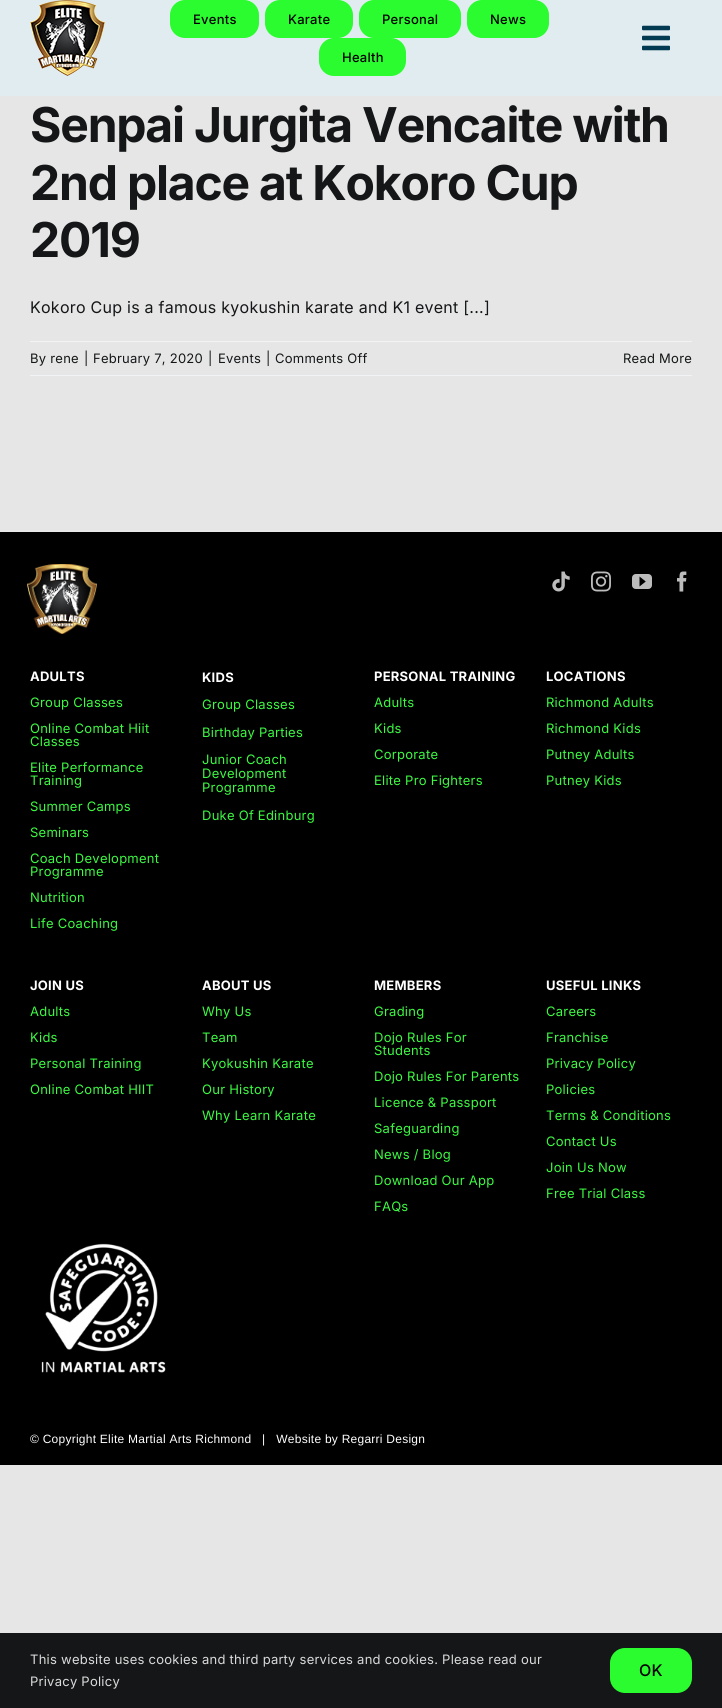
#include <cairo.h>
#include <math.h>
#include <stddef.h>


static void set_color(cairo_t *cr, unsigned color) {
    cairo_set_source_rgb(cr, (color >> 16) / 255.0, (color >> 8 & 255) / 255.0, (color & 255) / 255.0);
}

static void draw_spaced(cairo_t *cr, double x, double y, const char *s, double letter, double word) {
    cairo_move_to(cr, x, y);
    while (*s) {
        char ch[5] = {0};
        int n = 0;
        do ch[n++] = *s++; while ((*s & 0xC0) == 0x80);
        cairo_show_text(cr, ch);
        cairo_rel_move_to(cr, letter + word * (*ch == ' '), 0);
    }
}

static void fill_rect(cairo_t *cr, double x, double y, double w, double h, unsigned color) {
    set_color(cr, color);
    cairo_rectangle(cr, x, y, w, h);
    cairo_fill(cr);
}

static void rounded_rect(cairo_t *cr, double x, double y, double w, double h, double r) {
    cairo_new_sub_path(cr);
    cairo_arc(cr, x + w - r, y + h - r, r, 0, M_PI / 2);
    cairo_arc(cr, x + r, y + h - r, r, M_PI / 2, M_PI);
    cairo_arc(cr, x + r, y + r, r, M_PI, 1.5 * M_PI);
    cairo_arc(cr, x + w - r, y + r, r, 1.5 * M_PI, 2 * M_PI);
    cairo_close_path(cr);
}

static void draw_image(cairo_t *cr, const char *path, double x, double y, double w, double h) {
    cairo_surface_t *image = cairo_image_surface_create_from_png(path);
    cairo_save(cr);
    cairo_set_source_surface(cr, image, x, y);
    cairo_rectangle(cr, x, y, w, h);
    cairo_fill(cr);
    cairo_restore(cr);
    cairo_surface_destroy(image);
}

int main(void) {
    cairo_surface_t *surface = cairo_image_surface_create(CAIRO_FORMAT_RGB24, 722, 1708);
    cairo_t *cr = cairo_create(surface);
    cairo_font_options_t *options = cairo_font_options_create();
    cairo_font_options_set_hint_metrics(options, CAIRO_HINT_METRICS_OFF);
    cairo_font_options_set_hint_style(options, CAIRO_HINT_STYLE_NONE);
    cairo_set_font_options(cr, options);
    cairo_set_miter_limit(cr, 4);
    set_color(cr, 0xE6E6E6);
    cairo_paint(cr);
    fill_rect(cr, 0, 0, 722, 96, 0xE0ECF0);
    draw_image(cr, "assets/img1.png", 30, 0, 75, 76);
    set_color(cr, 0x2BFC2F);
    rounded_rect(cr, 170, 0, 89, 38, 15);
    cairo_fill(cr);
    cairo_select_font_face(cr, "Inter Medium", CAIRO_FONT_SLANT_NORMAL, CAIRO_FONT_WEIGHT_NORMAL);
    cairo_set_font_size(cr, 13);
    set_color(cr, 0x000000);
    draw_spaced(cr, 193, 24, "Events", 0.25, 0);
    set_color(cr, 0x2BFC2F);
    rounded_rect(cr, 265, 0, 88, 38, 15);
    cairo_fill(cr);
    set_color(cr, 0x000000);
    draw_spaced(cr, 288, 24, "Karate", 0.25, 0);
    set_color(cr, 0x2BFC2F);
    rounded_rect(cr, 359, 0, 102, 38, 15);
    cairo_fill(cr);
    set_color(cr, 0x000000);
    draw_spaced(cr, 382, 24, "Personal", 0.25, 0);
    set_color(cr, 0x2BFC2F);
    rounded_rect(cr, 467, 0, 82, 38, 15);
    cairo_fill(cr);
    set_color(cr, 0x000000);
    draw_spaced(cr, 490, 24, "News", 0.25, 0);
    set_color(cr, 0x2BFC2F);
    rounded_rect(cr, 319, 38, 87, 38, 15);
    cairo_fill(cr);
    set_color(cr, 0x000000);
    draw_spaced(cr, 342, 62, "Health", 0.25, 0);
    draw_image(cr, "assets/img2.png", 642, 25, 28, 26);
    cairo_select_font_face(cr, "Inter", CAIRO_FONT_SLANT_NORMAL, CAIRO_FONT_WEIGHT_BOLD);
    cairo_set_font_size(cr, 48);
    set_color(cr, 0x141617);
    draw_spaced(cr, 30, 142, "Senpai Jurgita Vencaite with", -1.2, 0);
    draw_spaced(cr, 30, 200, "2nd place at Kokoro Cup", -1.2, 0);
    draw_spaced(cr, 30, 257, "2019", -1.2, 0);
    cairo_select_font_face(cr, "Inter", CAIRO_FONT_SLANT_NORMAL, CAIRO_FONT_WEIGHT_NORMAL);
    cairo_set_font_size(cr, 16);
    draw_spaced(cr, 30, 313, "Kokoro Cup is a famous kyokushin karate and K1 event [...]", 0.25, 0);
    fill_rect(cr, 30, 341, 662, 1, 0xF2F3F5);
    fill_rect(cr, 30, 375, 662, 1, 0xF2F3F5);
    cairo_set_font_size(cr, 13);
    set_color(cr, 0x141617);
    draw_spaced(cr, 30, 363, "By rene", 0.25, 0);
    draw_spaced(cr, 84, 363, "|", 0.25, 0);
    draw_spaced(cr, 93, 363, "February 7, 2020", 0.25, 0);
    draw_spaced(cr, 208, 363, "|", 0.25, 0);
    draw_spaced(cr, 218, 363, "Events", 0.25, 0);
    draw_spaced(cr, 266, 363, "|", 0.25, 0);
    draw_spaced(cr, 275, 363, "Comments Off", 0.25, 0);
    draw_spaced(cr, 623, 363, "Read More", 0.25, 0);
    fill_rect(cr, 0, 532, 722, 933, 0x000000);
    fill_rect(cr, 0, 531, 722, 1, 0xEAEAEA);
    draw_image(cr, "assets/img3.png", 27, 564, 70, 70);
    draw_image(cr, "assets/img4.png", 552, 571, 18, 21);
    draw_image(cr, "assets/img5.png", 591, 571, 20, 21);
    draw_image(cr, "assets/img6.png", 632, 574, 20, 15);
    draw_image(cr, "assets/img7.png", 677, 571, 10, 21);
    cairo_select_font_face(cr, "Inter", CAIRO_FONT_SLANT_NORMAL, CAIRO_FONT_WEIGHT_BOLD);
    set_color(cr, 0xFFFFFF);
    draw_spaced(cr, 30, 681, "ADULTS", 0.25, 0);
    cairo_select_font_face(cr, "Inter", CAIRO_FONT_SLANT_NORMAL, CAIRO_FONT_WEIGHT_NORMAL);
    set_color(cr, 0x3CFA42);
    draw_spaced(cr, 30, 707, "Group Classes", 0.25, 0);
    draw_spaced(cr, 30, 733, "Online Combat Hiit", 0.25, 0);
    draw_spaced(cr, 30, 746, "Classes", 0.25, 0);
    draw_spaced(cr, 30, 772, "Elite Performance", 0.25, 0);
    draw_spaced(cr, 30, 785, "Training", 0.25, 0);
    draw_spaced(cr, 30, 811, "Summer Camps", 0.25, 0);
    draw_spaced(cr, 30, 837, "Seminars", 0.25, 0);
    draw_spaced(cr, 30, 863, "Coach Development", 0.25, 0);
    draw_spaced(cr, 30, 876, "Programme", 0.25, 0);
    draw_spaced(cr, 30, 902, "Nutrition", 0.25, 0);
    draw_spaced(cr, 30, 928, "Life Coaching", 0.25, 0);
    cairo_select_font_face(cr, "Inter", CAIRO_FONT_SLANT_NORMAL, CAIRO_FONT_WEIGHT_BOLD);
    set_color(cr, 0xFFFFFF);
    draw_spaced(cr, 202, 682, "KIDS", 0.25, 0);
    cairo_select_font_face(cr, "Inter", CAIRO_FONT_SLANT_NORMAL, CAIRO_FONT_WEIGHT_NORMAL);
    set_color(cr, 0x3CFA42);
    draw_spaced(cr, 202, 709, "Group Classes", 0.25, 0);
    draw_spaced(cr, 202, 737, "Birthday Parties", 0.25, 0);
    draw_spaced(cr, 202, 764, "Junior Coach", 0.25, 0);
    draw_spaced(cr, 202, 778, "Development", 0.25, 0);
    draw_spaced(cr, 202, 792, "Programme", 0.25, 0);
    draw_spaced(cr, 202, 820, "Duke Of Edinburg", 0.25, 0);
    cairo_select_font_face(cr, "Inter", CAIRO_FONT_SLANT_NORMAL, CAIRO_FONT_WEIGHT_BOLD);
    set_color(cr, 0xFFFFFF);
    draw_spaced(cr, 374, 681, "PERSONAL TRAINING", 0.25, 0);
    cairo_select_font_face(cr, "Inter", CAIRO_FONT_SLANT_NORMAL, CAIRO_FONT_WEIGHT_NORMAL);
    set_color(cr, 0x3CFA42);
    draw_spaced(cr, 374, 707, "Adults", 0.25, 0);
    draw_spaced(cr, 374, 733, "Kids", 0.25, 0);
    draw_spaced(cr, 374, 759, "Corporate", 0.25, 0);
    draw_spaced(cr, 374, 785, "Elite Pro Fighters", 0.25, 0);
    cairo_select_font_face(cr, "Inter", CAIRO_FONT_SLANT_NORMAL, CAIRO_FONT_WEIGHT_BOLD);
    set_color(cr, 0xFFFFFF);
    draw_spaced(cr, 546, 681, "LOCATIONS", 0.25, 0);
    cairo_select_font_face(cr, "Inter", CAIRO_FONT_SLANT_NORMAL, CAIRO_FONT_WEIGHT_NORMAL);
    set_color(cr, 0x3CFA42);
    draw_spaced(cr, 546, 707, "Richmond Adults", 0.25, 0);
    draw_spaced(cr, 546, 733, "Richmond Kids", 0.25, 0);
    draw_spaced(cr, 546, 759, "Putney Adults", 0.25, 0);
    draw_spaced(cr, 546, 785, "Putney Kids", 0.25, 0);
    cairo_select_font_face(cr, "Inter", CAIRO_FONT_SLANT_NORMAL, CAIRO_FONT_WEIGHT_BOLD);
    set_color(cr, 0xFFFFFF);
    draw_spaced(cr, 30, 990, "JOIN US", 0.25, 0);
    cairo_select_font_face(cr, "Inter", CAIRO_FONT_SLANT_NORMAL, CAIRO_FONT_WEIGHT_NORMAL);
    set_color(cr, 0x3CFA42);
    draw_spaced(cr, 30, 1016, "Adults", 0.25, 0);
    draw_spaced(cr, 30, 1042, "Kids", 0.25, 0);
    draw_spaced(cr, 30, 1068, "Personal Training", 0.25, 0);
    draw_spaced(cr, 30, 1094, "Online Combat HIIT", 0.25, 0);
    cairo_select_font_face(cr, "Inter", CAIRO_FONT_SLANT_NORMAL, CAIRO_FONT_WEIGHT_BOLD);
    set_color(cr, 0xFFFFFF);
    draw_spaced(cr, 202, 990, "ABOUT US", 0.25, 0);
    cairo_select_font_face(cr, "Inter", CAIRO_FONT_SLANT_NORMAL, CAIRO_FONT_WEIGHT_NORMAL);
    set_color(cr, 0x3CFA42);
    draw_spaced(cr, 202, 1016, "Why Us", 0.25, 0);
    draw_spaced(cr, 202, 1042, "Team", 0.25, 0);
    draw_spaced(cr, 202, 1068, "Kyokushin Karate", 0.25, 0);
    draw_spaced(cr, 202, 1094, "Our History", 0.25, 0);
    draw_spaced(cr, 202, 1120, "Why Learn Karate", 0.25, 0);
    cairo_select_font_face(cr, "Inter", CAIRO_FONT_SLANT_NORMAL, CAIRO_FONT_WEIGHT_BOLD);
    set_color(cr, 0xFFFFFF);
    draw_spaced(cr, 374, 990, "MEMBERS", 0.25, 0);
    cairo_select_font_face(cr, "Inter", CAIRO_FONT_SLANT_NORMAL, CAIRO_FONT_WEIGHT_NORMAL);
    set_color(cr, 0x3CFA42);
    draw_spaced(cr, 374, 1016, "Grading", 0.25, 0);
    draw_spaced(cr, 374, 1042, "Dojo Rules For", 0.25, 0);
    draw_spaced(cr, 374, 1055, "Students", 0.25, 0);
    draw_spaced(cr, 374, 1081, "Dojo Rules For Parents", 0.25, 0);
    draw_spaced(cr, 374, 1107, "Licence & Passport", 0.25, 0);
    draw_spaced(cr, 374, 1133, "Safeguarding", 0.25, 0);
    draw_spaced(cr, 374, 1159, "News / Blog", 0.25, 0);
    draw_spaced(cr, 374, 1185, "Download Our App", 0.25, 0);
    draw_spaced(cr, 374, 1211, "FAQs", 0.25, 0);
    cairo_select_font_face(cr, "Inter", CAIRO_FONT_SLANT_NORMAL, CAIRO_FONT_WEIGHT_BOLD);
    set_color(cr, 0xFFFFFF);
    draw_spaced(cr, 546, 990, "USEFUL LINKS", 0.25, 0);
    cairo_select_font_face(cr, "Inter", CAIRO_FONT_SLANT_NORMAL, CAIRO_FONT_WEIGHT_NORMAL);
    set_color(cr, 0x3CFA42);
    draw_spaced(cr, 546, 1016, "Careers", 0.25, 0);
    draw_spaced(cr, 546, 1042, "Franchise", 0.25, 0);
    draw_spaced(cr, 546, 1068, "Privacy Policy", 0.25, 0);
    draw_spaced(cr, 546, 1094, "Policies", 0.25, 0);
    draw_spaced(cr, 546, 1120, "Terms & Conditions", 0.25, 0);
    draw_spaced(cr, 546, 1146, "Contact Us", 0.25, 0);
    draw_spaced(cr, 546, 1172, "Join Us Now", 0.25, 0);
    draw_spaced(cr, 546, 1198, "Free Trial Class", 0.25, 0);
    draw_image(cr, "assets/img8.png", 41, 1243, 125, 130);
    cairo_select_font_face(cr, "Liberation Sans", CAIRO_FONT_SLANT_NORMAL, CAIRO_FONT_WEIGHT_NORMAL);
    cairo_set_font_size(cr, 12);
    set_color(cr, 0xFFFFFF);
    draw_spaced(cr, 30, 1443, "© Copyright Elite Martial Arts Richmond   |   Website by Regarri Design", 0.25, 0);
    fill_rect(cr, 0, 1633, 722, 75, 0x141617);
    cairo_select_font_face(cr, "Inter", CAIRO_FONT_SLANT_NORMAL, CAIRO_FONT_WEIGHT_NORMAL);
    cairo_set_font_size(cr, 13);
    set_color(cr, 0xDBDBDB);
    draw_spaced(cr, 30, 1664, "This website uses cookies and third party services and cookies. Please read our", 0.25, 0);
    draw_spaced(cr, 30, 1686, "Privacy Policy", 0.25, 0);
    set_color(cr, 0x2BFC2F);
    rounded_rect(cr, 610, 1648, 82, 45, 15);
    cairo_fill(cr);
    cairo_select_font_face(cr, "Inter Medium", CAIRO_FONT_SLANT_NORMAL, CAIRO_FONT_WEIGHT_NORMAL);
    cairo_set_font_size(cr, 16);
    set_color(cr, 0x000000);
    draw_spaced(cr, 639, 1676, "OK", 0.25, 0);
    cairo_surface_write_to_png(surface, "output.png");
    cairo_font_options_destroy(options);
    cairo_destroy(cr);
    cairo_surface_destroy(surface);
    return 0;
}
